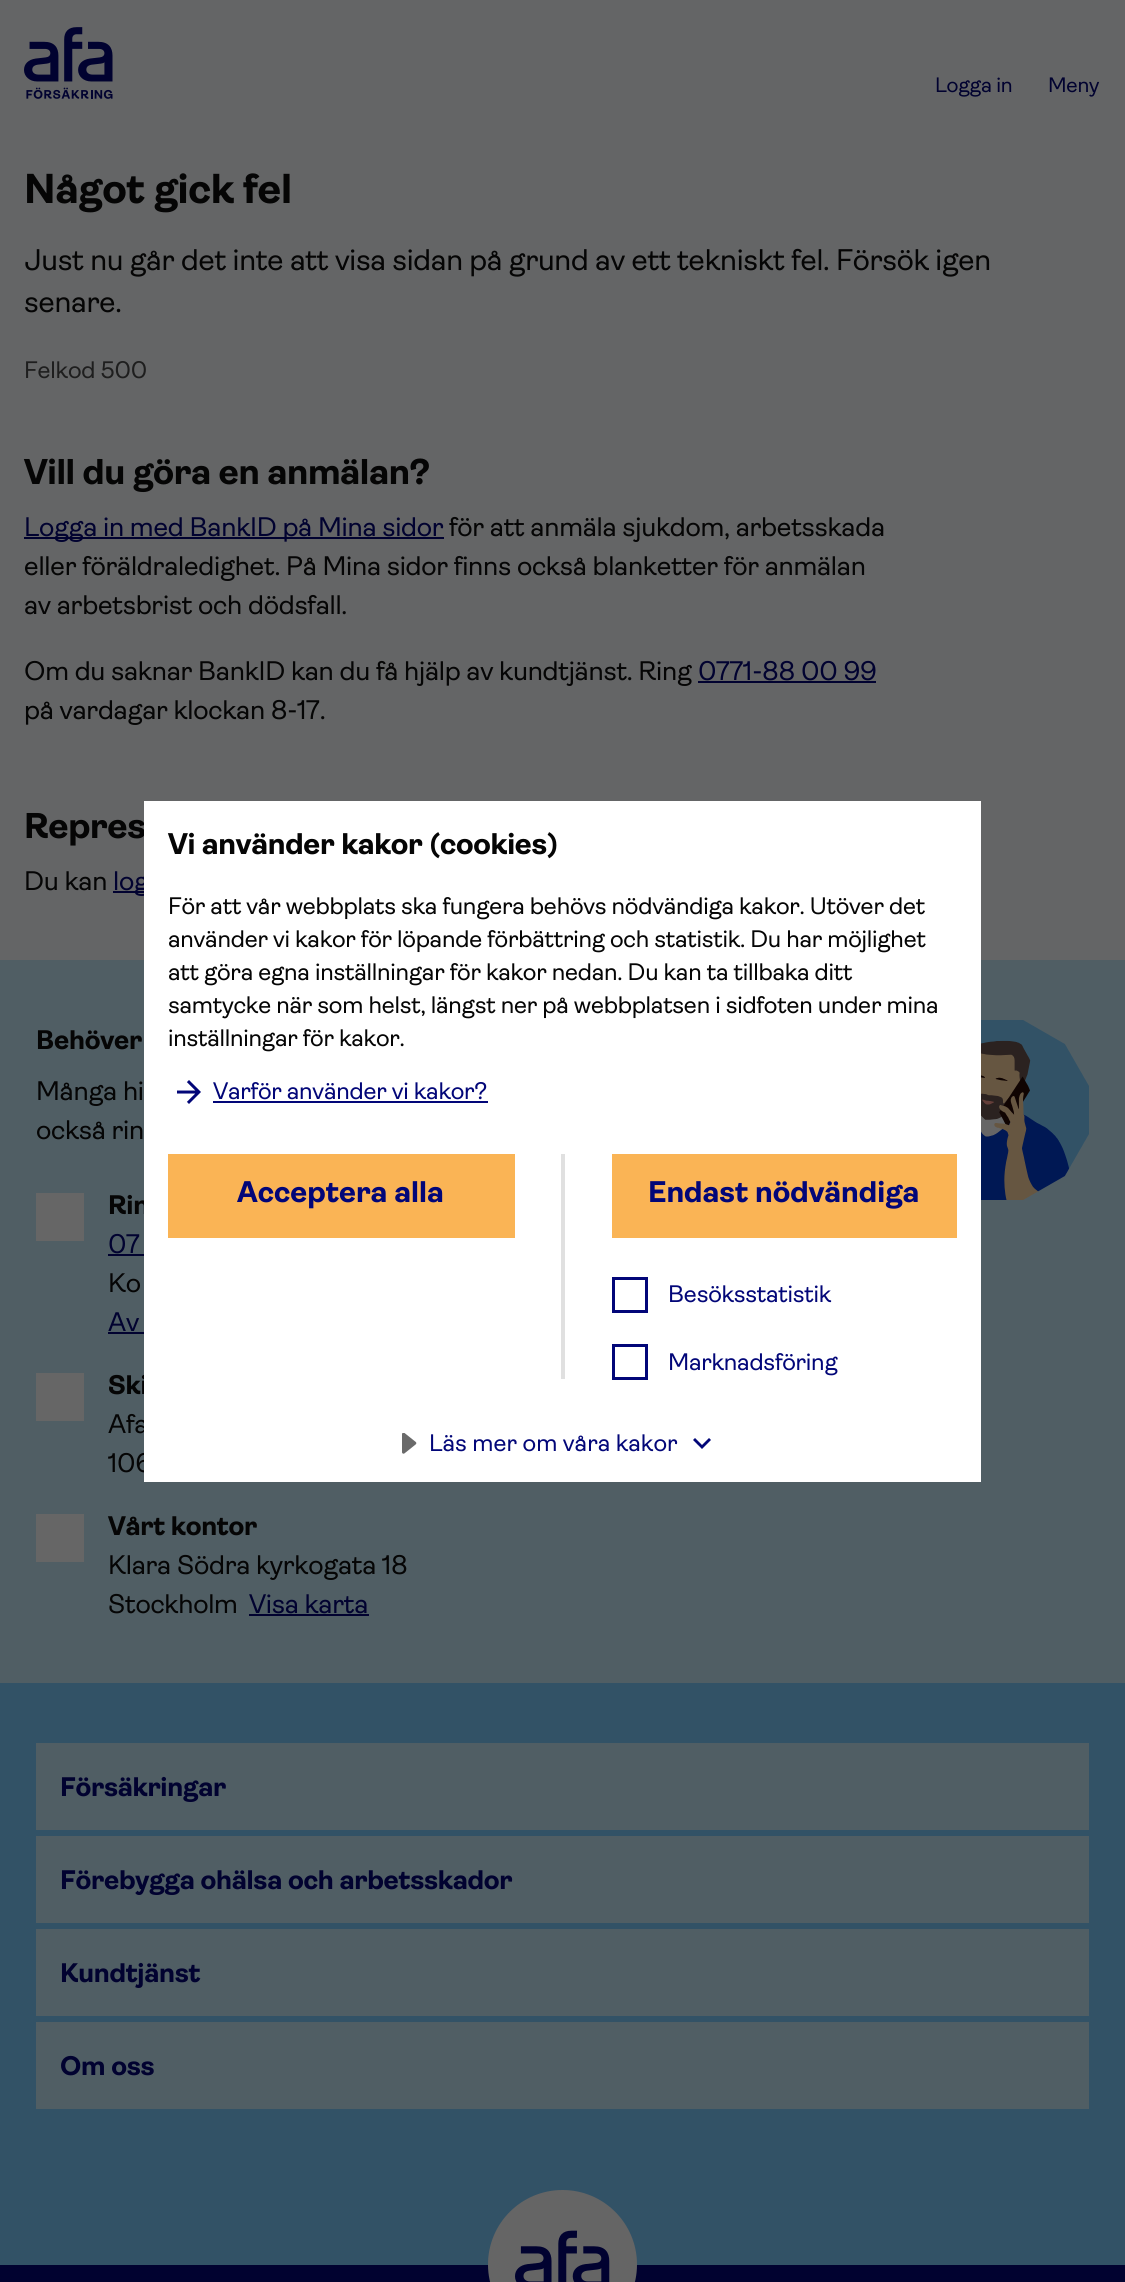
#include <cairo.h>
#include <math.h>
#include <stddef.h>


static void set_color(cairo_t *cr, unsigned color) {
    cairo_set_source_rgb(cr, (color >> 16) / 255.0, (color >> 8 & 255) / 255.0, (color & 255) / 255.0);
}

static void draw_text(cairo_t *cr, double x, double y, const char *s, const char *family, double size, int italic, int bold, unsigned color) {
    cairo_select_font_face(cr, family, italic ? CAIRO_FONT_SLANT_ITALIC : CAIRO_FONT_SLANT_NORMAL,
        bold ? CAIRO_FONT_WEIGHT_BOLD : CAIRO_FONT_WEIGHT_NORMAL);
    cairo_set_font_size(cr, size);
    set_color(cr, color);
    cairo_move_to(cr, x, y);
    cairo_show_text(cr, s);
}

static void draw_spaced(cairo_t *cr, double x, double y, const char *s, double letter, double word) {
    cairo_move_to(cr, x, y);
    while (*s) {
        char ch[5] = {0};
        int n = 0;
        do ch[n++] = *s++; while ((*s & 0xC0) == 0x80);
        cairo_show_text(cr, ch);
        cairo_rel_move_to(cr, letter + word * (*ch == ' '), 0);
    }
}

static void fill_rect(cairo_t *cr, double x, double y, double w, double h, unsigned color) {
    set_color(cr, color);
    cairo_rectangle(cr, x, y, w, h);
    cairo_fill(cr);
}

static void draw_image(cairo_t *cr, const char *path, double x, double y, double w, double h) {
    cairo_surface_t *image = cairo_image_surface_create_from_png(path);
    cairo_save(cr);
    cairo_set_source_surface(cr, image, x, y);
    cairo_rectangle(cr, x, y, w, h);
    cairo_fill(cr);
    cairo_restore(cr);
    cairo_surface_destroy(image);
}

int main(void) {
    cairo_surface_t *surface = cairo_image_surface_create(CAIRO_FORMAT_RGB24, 1125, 2282);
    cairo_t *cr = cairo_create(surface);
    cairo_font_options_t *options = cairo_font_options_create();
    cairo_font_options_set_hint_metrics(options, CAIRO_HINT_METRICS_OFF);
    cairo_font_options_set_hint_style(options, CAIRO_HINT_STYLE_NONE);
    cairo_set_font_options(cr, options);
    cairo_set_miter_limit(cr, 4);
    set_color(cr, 0x646566);
    cairo_paint(cr);
    draw_image(cr, "assets/img1.png", 24, 27, 89, 72);
    cairo_select_font_face(cr, "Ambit", CAIRO_FONT_SLANT_NORMAL, CAIRO_FONT_WEIGHT_NORMAL);
    cairo_set_font_size(cr, 21);
    set_color(cr, 0x010230);
    draw_spaced(cr, 935, 92, "Logga in", -0.25, 0);
    draw_spaced(cr, 1048, 92, "Meny", -0.25, 0);
    cairo_select_font_face(cr, "Ambit", CAIRO_FONT_SLANT_NORMAL, CAIRO_FONT_WEIGHT_BOLD);
    cairo_set_font_size(cr, 42);
    set_color(cr, 0x050505);
    draw_spaced(cr, 24, 203, "Något gick fel", -0.4, 0);
    cairo_select_font_face(cr, "Ambit", CAIRO_FONT_SLANT_NORMAL, CAIRO_FONT_WEIGHT_NORMAL);
    cairo_set_font_size(cr, 30);
    draw_spaced(cr, 24, 270, "Just nu går det inte att visa sidan på grund av ett tekniskt fel. Försök igen", -0.3, 0);
    draw_spaced(cr, 24, 312, "senare.", -0.3, 0);
    cairo_set_font_size(cr, 24);
    set_color(cr, 0x1E1E1E);
    draw_spaced(cr, 24, 378, "Felkod 500", -0.25, 0);
    cairo_select_font_face(cr, "Ambit", CAIRO_FONT_SLANT_NORMAL, CAIRO_FONT_WEIGHT_BOLD);
    cairo_set_font_size(cr, 36);
    set_color(cr, 0x050505);
    draw_spaced(cr, 24, 484, "Vill du göra en anmälan?", -0.4, 0);
    fill_rect(cr, 24, 537, 420, 2, 0x010230);
    cairo_select_font_face(cr, "Ambit", CAIRO_FONT_SLANT_NORMAL, CAIRO_FONT_WEIGHT_NORMAL);
    cairo_set_font_size(cr, 27);
    draw_spaced(cr, 24, 536, "Logga in med BankID på Mina sidor", -0.27, 0);
    set_color(cr, 0x050505);
    draw_spaced(cr, 449, 536, "för att anmäla sjukdom, arbetsskada", -0.27, 0);
    draw_spaced(cr, 24, 575, "eller föräldraledighet. På Mina sidor finns också blanketter för anmälan", -0.27, 0);
    draw_spaced(cr, 24, 614, "av arbetsbrist och dödsfall.", -0.27, 0);
    draw_spaced(cr, 24, 680, "Om du saknar BankID kan du få hjälp av kundtjänst. Ring", -0.27, 0);
    set_color(cr, 0x010230);
    draw_spaced(cr, 698, 680, "0771-88 00 99", -0.27, 0);
    fill_rect(cr, 698, 681, 178, 2, 0x010230);
    set_color(cr, 0x050505);
    draw_spaced(cr, 24, 719, "på vardagar klockan 8-17.", -0.27, 0);
    cairo_select_font_face(cr, "Ambit", CAIRO_FONT_SLANT_NORMAL, CAIRO_FONT_WEIGHT_BOLD);
    cairo_set_font_size(cr, 36);
    draw_spaced(cr, 24, 838, "Repres", -0.4, 0);
    cairo_select_font_face(cr, "Ambit", CAIRO_FONT_SLANT_NORMAL, CAIRO_FONT_WEIGHT_NORMAL);
    cairo_set_font_size(cr, 27);
    draw_spaced(cr, 24, 890, "Du kan", -0.27, 0);
    fill_rect(cr, 113, 891, 31, 2, 0x010230);
    draw_spaced(cr, 113, 890, "log", -0.27, 0);
    fill_rect(cr, 0, 960, 1125, 723, 0x505E64);
    cairo_select_font_face(cr, "Ambit", CAIRO_FONT_SLANT_NORMAL, CAIRO_FONT_WEIGHT_BOLD);
    set_color(cr, 0x050505);
    draw_spaced(cr, 108, 1214, "Rin", -0.27, 0);
    draw_spaced(cr, 108, 1394, "Ski", -0.27, 0);
    cairo_select_font_face(cr, "Ambit", CAIRO_FONT_SLANT_NORMAL, CAIRO_FONT_WEIGHT_NORMAL);
    draw_spaced(cr, 108, 1433, "Afa", -0.27, 0);
    draw_spaced(cr, 108, 1472, "106", -0.27, 0);
    fill_rect(cr, 144, 801, 837, 681, 0xFFFFFF);
    cairo_select_font_face(cr, "Ambit", CAIRO_FONT_SLANT_NORMAL, CAIRO_FONT_WEIGHT_BOLD);
    cairo_set_font_size(cr, 30);
    set_color(cr, 0x050505);
    draw_spaced(cr, 168, 854, "Vi använder kakor (cookies)", -0.25, 0);
    cairo_select_font_face(cr, "Ambit", CAIRO_FONT_SLANT_NORMAL, CAIRO_FONT_WEIGHT_NORMAL);
    cairo_set_font_size(cr, 24);
    draw_spaced(cr, 168, 914, "För att vår webbplats ska fungera behövs nödvändiga kakor. Utöver det", -0.25, 0);
    draw_spaced(cr, 168, 947, "använder vi kakor för löpande förbättring och statistik. Du har möjlighet", -0.25, 0);
    draw_spaced(cr, 168, 980, "att göra egna inställningar för kakor nedan. Du kan ta tillbaka ditt", -0.25, 0);
    draw_spaced(cr, 168, 1013, "samtycke när som helst, längst ner på webbplatsen i sidfoten under mina", -0.25, 0);
    draw_spaced(cr, 168, 1046, "inställningar för kakor.", -0.25, 0);
    draw_image(cr, "assets/img2.png", 177, 1080, 24, 24);
    set_color(cr, 0x020678);
    draw_spaced(cr, 213, 1099, "Varför använder vi kakor?", -0.25, 0);
    fill_rect(cr, 213, 1101, 275, 2, 0x020678);
    fill_rect(cr, 561, 1154, 4, 225, 0xE0E0E0);
    fill_rect(cr, 168, 1154, 347, 84, 0xFAB455);
    draw_text(cr, 237, 1202, "Acceptera alla", "Ambit", 30, 0, 1, 0x020678);
    fill_rect(cr, 612, 1154, 345, 84, 0xFAB455);
    draw_text(cr, 648, 1202, "Endast nödvändiga", "Ambit", 30, 0, 1, 0x020678);
    cairo_rectangle(cr, 613.5, 1278.5, 33, 33);
    cairo_set_line_width(cr, 3);
    cairo_stroke(cr);
    cairo_select_font_face(cr, "Ambit", CAIRO_FONT_SLANT_NORMAL, CAIRO_FONT_WEIGHT_NORMAL);
    cairo_set_font_size(cr, 24);
    draw_spaced(cr, 668, 1302, "Besöksstatistik", -0.25, 0);
    cairo_rectangle(cr, 613.5, 1345.5, 33, 33);
    cairo_stroke(cr);
    draw_spaced(cr, 668, 1370, "Marknadsföring", -0.25, 0);
    draw_image(cr, "assets/img3.png", 402, 1433, 15, 21);
    draw_text(cr, 429, 1451, "Läs mer om våra kakor", "Ambit", 24, 0, 0, 0x020678);
    cairo_new_path(cr);
    cairo_move_to(cr, 709, 1438);
    cairo_line_to(cr, 702, 1445);
    cairo_line_to(cr, 695, 1438);
    cairo_line_to(cr, 693, 1440);
    cairo_line_to(cr, 702, 1449);
    cairo_line_to(cr, 711, 1440);
    cairo_close_path(cr);
    cairo_fill(cr);
    cairo_select_font_face(cr, "Ambit", CAIRO_FONT_SLANT_NORMAL, CAIRO_FONT_WEIGHT_BOLD);
    cairo_set_font_size(cr, 27);
    set_color(cr, 0x050505);
    draw_spaced(cr, 36, 1049, "Behöver", -0.27, 0);
    cairo_select_font_face(cr, "Ambit", CAIRO_FONT_SLANT_NORMAL, CAIRO_FONT_WEIGHT_NORMAL);
    draw_spaced(cr, 36, 1100, "Många hi", -0.27, 0);
    draw_spaced(cr, 36, 1139, "också rin", -0.27, 0);
    fill_rect(cr, 36, 1193, 48, 48, 0x666666);
    set_color(cr, 0x010230);
    draw_spaced(cr, 108, 1253, "07", -0.27, 0);
    fill_rect(cr, 108, 1254, 36, 2, 0x010230);
    set_color(cr, 0x050505);
    draw_spaced(cr, 108, 1292, "Ko", -0.27, 0);
    set_color(cr, 0x010230);
    draw_spaced(cr, 108, 1331, "Av", -0.27, 0);
    fill_rect(cr, 108, 1332, 36, 2, 0x010230);
    fill_rect(cr, 36, 1373, 48, 48, 0x666666);
    fill_rect(cr, 36, 1514, 48, 48, 0x666666);
    cairo_select_font_face(cr, "Ambit", CAIRO_FONT_SLANT_NORMAL, CAIRO_FONT_WEIGHT_BOLD);
    set_color(cr, 0x050505);
    draw_spaced(cr, 108, 1535, "Vårt kontor", -0.27, 0);
    cairo_select_font_face(cr, "Ambit", CAIRO_FONT_SLANT_NORMAL, CAIRO_FONT_WEIGHT_NORMAL);
    draw_spaced(cr, 108, 1574, "Klara Södra kyrkogata 18", -0.27, 0);
    draw_spaced(cr, 108, 1613, "Stockholm", -0.27, 0);
    set_color(cr, 0x010230);
    draw_spaced(cr, 249, 1613, "Visa karta", -0.27, 0);
    fill_rect(cr, 249, 1614, 120, 2, 0x010230);
    draw_image(cr, "assets/img4.png", 981, 1020, 108, 180);
    fill_rect(cr, 0, 1683, 1125, 582, 0x325266);
    fill_rect(cr, 36, 1743, 1053, 87, 0x505E64);
    cairo_select_font_face(cr, "Ambit", CAIRO_FONT_SLANT_NORMAL, CAIRO_FONT_WEIGHT_BOLD);
    set_color(cr, 0x010230);
    draw_spaced(cr, 60, 1796, "Försäkringar", -0.27, 0);
    fill_rect(cr, 36, 1836, 1053, 87, 0x505E64);
    set_color(cr, 0x010230);
    draw_spaced(cr, 60, 1889, "Förebygga ohälsa och arbetsskador", -0.27, 0);
    fill_rect(cr, 36, 1929, 1053, 87, 0x505E64);
    set_color(cr, 0x010230);
    draw_spaced(cr, 60, 1982, "Kundtjänst", -0.27, 0);
    fill_rect(cr, 36, 2022, 1053, 87, 0x505E64);
    set_color(cr, 0x010230);
    draw_spaced(cr, 60, 2075, "Om oss", -0.27, 0);
    fill_rect(cr, 0, 2265, 1125, 17, 0x010230);
    draw_image(cr, "assets/img5.png", 488, 2190, 149, 92);
    cairo_surface_write_to_png(surface, "output.png");
    cairo_font_options_destroy(options);
    cairo_destroy(cr);
    cairo_surface_destroy(surface);
    return 0;
}
